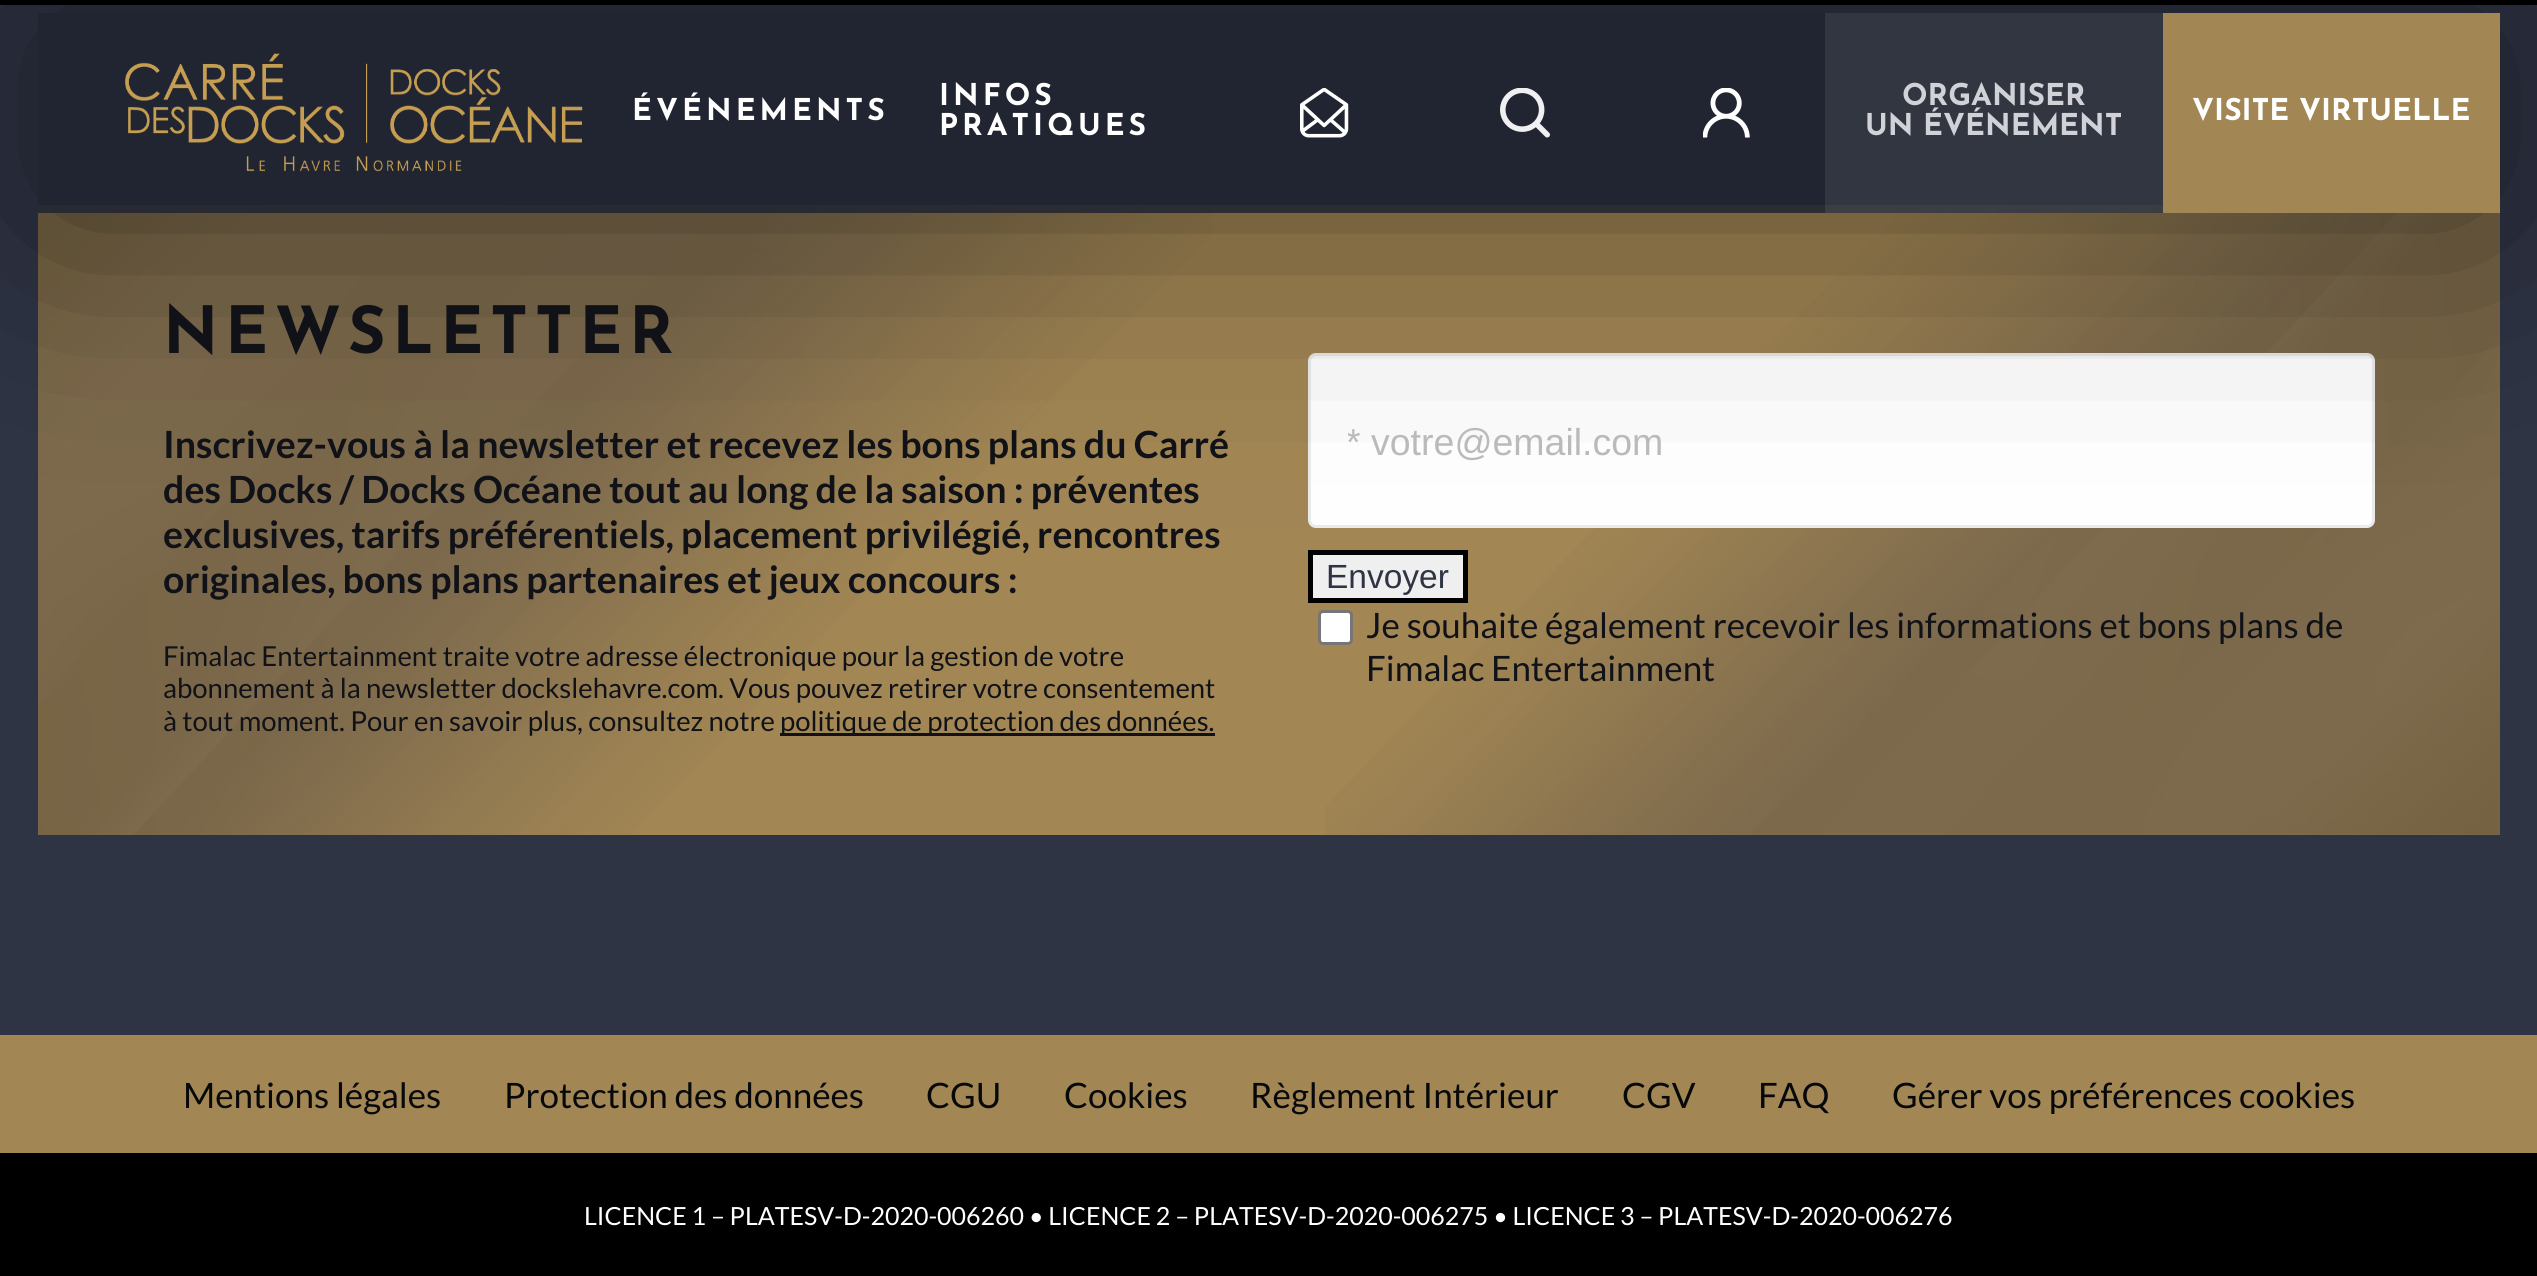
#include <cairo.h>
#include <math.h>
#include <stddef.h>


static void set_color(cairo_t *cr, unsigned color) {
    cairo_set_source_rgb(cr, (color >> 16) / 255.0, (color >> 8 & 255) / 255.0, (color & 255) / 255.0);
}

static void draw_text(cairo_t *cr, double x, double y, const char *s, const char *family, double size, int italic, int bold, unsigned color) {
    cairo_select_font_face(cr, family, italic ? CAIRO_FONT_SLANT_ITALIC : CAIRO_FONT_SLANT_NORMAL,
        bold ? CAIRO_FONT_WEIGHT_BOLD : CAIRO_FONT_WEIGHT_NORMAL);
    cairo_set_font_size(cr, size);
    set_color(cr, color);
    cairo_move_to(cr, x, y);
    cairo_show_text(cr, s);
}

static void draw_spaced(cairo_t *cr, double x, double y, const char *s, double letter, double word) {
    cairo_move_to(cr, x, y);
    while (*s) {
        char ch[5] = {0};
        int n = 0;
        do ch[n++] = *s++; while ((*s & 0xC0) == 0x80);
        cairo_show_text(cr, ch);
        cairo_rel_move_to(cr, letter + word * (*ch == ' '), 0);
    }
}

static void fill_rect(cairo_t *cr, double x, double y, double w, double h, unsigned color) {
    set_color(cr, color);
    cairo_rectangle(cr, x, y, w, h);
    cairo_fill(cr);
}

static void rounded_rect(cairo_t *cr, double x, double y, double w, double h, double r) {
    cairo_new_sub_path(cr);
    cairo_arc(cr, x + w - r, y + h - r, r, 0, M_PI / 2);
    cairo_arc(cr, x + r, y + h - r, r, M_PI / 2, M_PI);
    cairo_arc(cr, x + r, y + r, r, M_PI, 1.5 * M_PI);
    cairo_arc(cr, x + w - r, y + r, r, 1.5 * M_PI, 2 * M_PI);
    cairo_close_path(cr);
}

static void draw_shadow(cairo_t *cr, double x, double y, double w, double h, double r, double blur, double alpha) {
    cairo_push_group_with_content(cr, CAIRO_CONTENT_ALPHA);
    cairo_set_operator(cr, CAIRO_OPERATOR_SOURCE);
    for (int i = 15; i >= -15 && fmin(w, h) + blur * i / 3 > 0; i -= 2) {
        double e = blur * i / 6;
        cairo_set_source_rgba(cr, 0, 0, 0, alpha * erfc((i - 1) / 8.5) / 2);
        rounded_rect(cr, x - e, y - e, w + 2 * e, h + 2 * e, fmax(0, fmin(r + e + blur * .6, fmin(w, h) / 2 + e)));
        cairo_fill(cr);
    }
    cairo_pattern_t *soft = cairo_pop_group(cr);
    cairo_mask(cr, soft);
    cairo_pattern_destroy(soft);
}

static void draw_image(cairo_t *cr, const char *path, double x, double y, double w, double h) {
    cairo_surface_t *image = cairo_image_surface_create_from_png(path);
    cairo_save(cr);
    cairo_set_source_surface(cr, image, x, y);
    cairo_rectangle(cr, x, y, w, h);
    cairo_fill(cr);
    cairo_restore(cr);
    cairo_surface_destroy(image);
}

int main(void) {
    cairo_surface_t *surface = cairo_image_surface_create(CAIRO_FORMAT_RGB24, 2537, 1276);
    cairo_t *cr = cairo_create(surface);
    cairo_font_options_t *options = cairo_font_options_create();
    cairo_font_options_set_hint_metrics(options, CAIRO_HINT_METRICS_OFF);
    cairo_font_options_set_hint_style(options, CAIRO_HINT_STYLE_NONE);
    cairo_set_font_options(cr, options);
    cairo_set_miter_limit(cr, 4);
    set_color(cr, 0x000000);
    cairo_paint(cr);
    fill_rect(cr, 0, 5, 2537, 1030, 0x2F3445);
    fill_rect(cr, 38, 205, 2462, 630, 0xA28654);
    draw_image(cr, "assets/img5.png", 38, 205, 1174, 630);
    draw_image(cr, "assets/img6.png", 1325, 205, 1175, 630);
    set_color(cr, 0xFFFFFF);
    rounded_rect(cr, 1308, 353, 1067, 175, 8);
    cairo_fill(cr);
    rounded_rect(cr, 1309.5, 354.5, 1064, 172, 6.5);
    cairo_set_source_rgba(cr, 0.208, 0.208, 0.259, 0.1);
    cairo_set_line_width(cr, 3);
    cairo_stroke(cr);
    set_color(cr, 0xEFEFEF);
    cairo_rectangle(cr, 1310.5, 552.5, 155, 48);
    cairo_fill_preserve(cr);
    set_color(cr, 0x000000);
    cairo_set_line_width(cr, 5);
    cairo_stroke(cr);
    cairo_save(cr);
    cairo_set_fill_rule(cr, CAIRO_FILL_RULE_EVEN_ODD);
    cairo_new_path(cr);
    cairo_move_to(cr, 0, 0);
    cairo_line_to(cr, 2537, 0);
    cairo_line_to(cr, 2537, 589);
    cairo_line_to(cr, 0, 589);
    cairo_close_path(cr);
    cairo_move_to(cr, 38, 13);
    cairo_line_to(cr, 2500, 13);
    cairo_line_to(cr, 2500, 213);
    cairo_line_to(cr, 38, 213);
    cairo_close_path(cr);
    cairo_clip(cr);
    set_color(cr, 0x000000);
    draw_shadow(cr, 38, 13, 2462, 200, 0, 125, 0.5);
    cairo_restore(cr);
    cairo_set_source_rgba(cr, 0.125, 0.141, 0.184, 0.9);
    cairo_rectangle(cr, 38, 13, 2125, 200);
    cairo_fill(cr);
    draw_image(cr, "assets/img1.png", 125, 53, 458, 119);
    cairo_select_font_face(cr, "Josefin Sans", CAIRO_FONT_SLANT_NORMAL, CAIRO_FONT_WEIGHT_BOLD);
    cairo_set_font_size(cr, 30);
    set_color(cr, 0xFFFFFF);
    draw_spaced(cr, 632, 120, "ÉVÉNEMENTS", 4, 0);
    draw_spaced(cr, 939, 105, "INFOS", 4, 0);
    draw_spaced(cr, 939, 135, "PRATIQUES", 4, 0);
    draw_image(cr, "assets/img2.png", 1300, 88, 49, 50);
    draw_image(cr, "assets/img3.png", 1500, 88, 50, 50);
    draw_image(cr, "assets/img4.png", 1703, 88, 47, 50);
    cairo_set_source_rgba(cr, 0.816, 0.824, 0.843, 0.1);
    cairo_rectangle(cr, 1825, 13, 338, 200);
    cairo_fill(cr);
    draw_text(cr, 1902, 105, "ORGANISER", "Josefin Sans", 30, 0, 1, 0xD0D2D7);
    draw_text(cr, 1865, 135, "UN ÉVÉNEMENT", "Josefin Sans", 30, 0, 1, 0xD0D2D7);
    fill_rect(cr, 2163, 13, 337, 200, 0xA28654);
    draw_text(cr, 2192, 120, "VISITE VIRTUELLE", "Josefin Sans", 30, 0, 1, 0xFFFFFF);
    cairo_set_font_size(cr, 65);
    set_color(cr, 0x101218);
    draw_spaced(cr, 163, 353, "NEWSLETTER", 6.5, 0);
    draw_text(cr, 163, 458, "Inscrivez-vous à la newsletter et recevez les bons plans du Carré", "Lato", 37.5, 0, 1, 0x101218);
    draw_text(cr, 163, 503, "des Docks / Docks Océane tout au long de la saison : préventes", "Lato", 37.5, 0, 1, 0x101218);
    draw_text(cr, 163, 548, "exclusives, tarifs préférentiels, placement privilégié, rencontres", "Lato", 37.5, 0, 1, 0x101218);
    draw_text(cr, 163, 593, "originales, bons plans partenaires et jeux concours :", "Lato", 37.5, 0, 1, 0x101218);
    draw_text(cr, 163, 666, "Fimalac Entertainment traite votre adresse électronique pour la gestion de votre", "Lato", 27.5, 0, 0, 0x101218);
    draw_text(cr, 163, 698, "abonnement à la newsletter dockslehavre.com. Vous pouvez retirer votre consentement", "Lato", 27.5, 0, 0, 0x101218);
    draw_text(cr, 163, 731, "à tout moment. Pour en savoir plus, consultez notre", "Lato", 27.5, 0, 0, 0x101218);
    fill_rect(cr, 780, 733, 435, 3, 0x101218);
    draw_text(cr, 780, 731, "politique de protection des données.", "Lato", 27.5, 0, 0, 0x101218);
    cairo_save(cr);
    cairo_rectangle(cr, 1348, 420, 1020, 43);
    cairo_clip(cr);
    draw_text(cr, 1346, 455, "* votre@email.com", "Liberation Sans", 37.5, 0, 0, 0xBABABA);
    cairo_restore(cr);
    draw_text(cr, 1326, 588, "Envoyer", "Liberation Sans", 33.5, 0, 0, 0x2F3445);
    set_color(cr, 0xFFFFFF);
    rounded_rect(cr, 1319.5, 611.5, 32, 32, 3.5);
    cairo_fill_preserve(cr);
    set_color(cr, 0x767676);
    cairo_set_line_width(cr, 3);
    cairo_stroke(cr);
    draw_text(cr, 1366, 638, "Je souhaite également recevoir les informations et bons plans de", "Lato", 35, 0, 0, 0x101218);
    draw_text(cr, 1366, 681, "Fimalac Entertainment", "Lato", 35, 0, 0, 0x101218);
    fill_rect(cr, 0, 1035, 2537, 118, 0xA28654);
    draw_text(cr, 183, 1108, "Mentions légales", "Lato", 35, 0, 0, 0x07080A);
    draw_text(cr, 504, 1108, "Protection des données", "Lato", 35, 0, 0, 0x07080A);
    draw_text(cr, 926, 1108, "CGU", "Lato", 35, 0, 0, 0x07080A);
    draw_text(cr, 1064, 1108, "Cookies", "Lato", 35, 0, 0, 0x07080A);
    draw_text(cr, 1250, 1108, "Règlement Intérieur", "Lato", 35, 0, 0, 0x07080A);
    draw_text(cr, 1622, 1108, "CGV", "Lato", 35, 0, 0, 0x07080A);
    draw_text(cr, 1758, 1108, "FAQ", "Lato", 35, 0, 0, 0x07080A);
    draw_text(cr, 1892, 1108, "Gérer vos préférences cookies", "Lato", 35, 0, 0, 0x07080A);
    draw_text(cr, 584, 1225, "LICENCE 1 – PLATESV-D-2020-006260 • LICENCE 2 – PLATESV-D-2020-006275 • LICENCE 3 – PLATESV-D-2020-006276", "Lato", 25, 0, 0, 0xFFFFFF);
    cairo_surface_write_to_png(surface, "output.png");
    cairo_font_options_destroy(options);
    cairo_destroy(cr);
    cairo_surface_destroy(surface);
    return 0;
}
